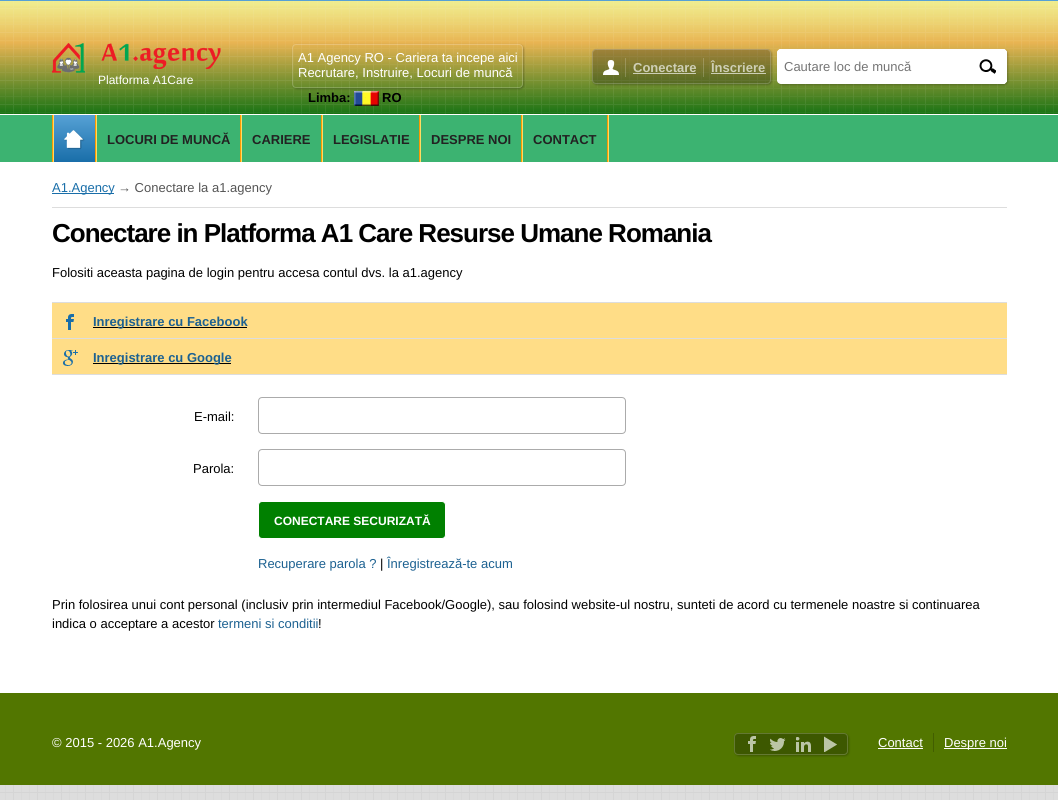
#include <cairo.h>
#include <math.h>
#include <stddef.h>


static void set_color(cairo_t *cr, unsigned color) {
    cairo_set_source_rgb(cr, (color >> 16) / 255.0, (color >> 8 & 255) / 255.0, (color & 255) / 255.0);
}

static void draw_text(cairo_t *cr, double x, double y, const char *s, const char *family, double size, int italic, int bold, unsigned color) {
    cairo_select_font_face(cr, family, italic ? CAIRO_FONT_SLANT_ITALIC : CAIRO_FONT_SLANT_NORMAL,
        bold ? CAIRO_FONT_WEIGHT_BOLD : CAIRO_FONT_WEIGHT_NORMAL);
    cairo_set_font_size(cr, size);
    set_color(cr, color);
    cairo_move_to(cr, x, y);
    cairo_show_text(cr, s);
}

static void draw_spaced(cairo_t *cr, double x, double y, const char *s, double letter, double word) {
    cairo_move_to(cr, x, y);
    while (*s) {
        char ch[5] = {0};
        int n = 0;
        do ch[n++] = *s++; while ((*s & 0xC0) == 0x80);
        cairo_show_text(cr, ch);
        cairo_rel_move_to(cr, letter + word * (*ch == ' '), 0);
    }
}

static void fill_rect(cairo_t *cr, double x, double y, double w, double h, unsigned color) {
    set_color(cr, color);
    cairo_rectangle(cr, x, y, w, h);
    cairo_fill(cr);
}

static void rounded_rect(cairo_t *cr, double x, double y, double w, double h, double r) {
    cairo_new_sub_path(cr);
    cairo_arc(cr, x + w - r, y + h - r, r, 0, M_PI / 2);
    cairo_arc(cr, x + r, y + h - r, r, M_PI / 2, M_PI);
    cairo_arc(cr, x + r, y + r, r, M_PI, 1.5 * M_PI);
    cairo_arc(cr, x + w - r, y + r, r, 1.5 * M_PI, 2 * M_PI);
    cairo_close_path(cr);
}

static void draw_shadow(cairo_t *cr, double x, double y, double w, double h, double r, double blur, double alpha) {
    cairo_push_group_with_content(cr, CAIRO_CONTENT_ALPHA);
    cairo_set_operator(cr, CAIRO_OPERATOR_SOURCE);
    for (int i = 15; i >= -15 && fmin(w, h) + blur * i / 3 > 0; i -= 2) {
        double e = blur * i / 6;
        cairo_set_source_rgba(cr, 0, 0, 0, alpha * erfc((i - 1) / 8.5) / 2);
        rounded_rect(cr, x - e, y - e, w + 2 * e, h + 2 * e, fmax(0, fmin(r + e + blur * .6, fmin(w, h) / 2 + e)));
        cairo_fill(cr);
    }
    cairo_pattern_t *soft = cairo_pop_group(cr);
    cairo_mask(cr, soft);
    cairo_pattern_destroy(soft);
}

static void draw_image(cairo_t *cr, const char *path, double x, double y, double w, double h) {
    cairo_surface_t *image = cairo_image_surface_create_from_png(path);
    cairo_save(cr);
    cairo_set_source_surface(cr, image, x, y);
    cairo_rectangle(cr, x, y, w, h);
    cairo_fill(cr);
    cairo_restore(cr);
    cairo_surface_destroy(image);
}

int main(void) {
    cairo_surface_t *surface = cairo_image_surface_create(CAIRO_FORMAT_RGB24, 1058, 800);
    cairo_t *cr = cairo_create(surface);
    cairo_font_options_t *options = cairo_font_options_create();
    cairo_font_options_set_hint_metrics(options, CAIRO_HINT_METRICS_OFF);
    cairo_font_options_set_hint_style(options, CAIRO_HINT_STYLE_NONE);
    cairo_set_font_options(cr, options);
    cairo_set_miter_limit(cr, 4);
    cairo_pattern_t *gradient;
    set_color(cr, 0xDDDDDD);
    cairo_paint(cr);
    draw_image(cr, "assets/img1.png", 0, 1, 1058, 799);
    gradient = cairo_pattern_create_linear(529, 1, 529, 114);
    cairo_pattern_add_color_stop_rgba(gradient, 0, 0.961, 0.945, 0.486, 0.8);
    cairo_pattern_add_color_stop_rgba(gradient, 0.37, 0.91, 0.706, 0.322, 1);
    cairo_pattern_add_color_stop_rgba(gradient, 1, 0.098, 0.451, 0.078, 1);
    cairo_set_source(cr, gradient);
    cairo_pattern_destroy(gradient);
    cairo_rectangle(cr, 0, 1, 1058, 113);
    cairo_fill(cr);
    fill_rect(cr, 0, 0, 1058, 1, 0x56A1D5);
    draw_image(cr, "assets/img2.png", 0, 1, 1058, 113);
    cairo_save(cr);
    cairo_set_fill_rule(cr, CAIRO_FILL_RULE_EVEN_ODD);
    cairo_new_path(cr);
    cairo_move_to(cr, 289, 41);
    cairo_line_to(cr, 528, 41);
    cairo_line_to(cr, 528, 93);
    cairo_line_to(cr, 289, 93);
    cairo_close_path(cr);
    cairo_move_to(cr, 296, 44);
    cairo_line_to(cr, 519, 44);
    cairo_curve_to(cr, 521, 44, 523, 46, 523, 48);
    cairo_line_to(cr, 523, 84);
    cairo_curve_to(cr, 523, 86, 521, 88, 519, 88);
    cairo_line_to(cr, 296, 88);
    cairo_curve_to(cr, 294, 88, 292, 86, 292, 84);
    cairo_line_to(cr, 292, 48);
    cairo_curve_to(cr, 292, 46, 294, 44, 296, 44);
    cairo_close_path(cr);
    cairo_clip(cr);
    set_color(cr, 0x000000);
    draw_shadow(cr, 293, 45, 231, 44, 4, 1, 0.25);
    cairo_restore(cr);
    rounded_rect(cr, 292.5, 44.5, 230, 43, 3.5);
    cairo_set_source_rgba(cr, 1, 1, 1, 0.2);
    cairo_set_line_width(cr, 1);
    cairo_stroke(cr);
    draw_text(cr, 298, 62, "A1 Agency RO - Cariera ta incepe aici", "Liberation Sans", 13, 0, 0, 0xFFFFFF);
    draw_text(cr, 298, 77, "Recrutare, Instruire, Locuri de muncă", "Liberation Sans", 13, 0, 0, 0xFFFFFF);
    draw_text(cr, 308, 102, "Limba:", "Liberation Sans", 13, 0, 1, 0x000000);
    draw_image(cr, "assets/img3.png", 354, 91, 25, 15);
    draw_text(cr, 382, 102, "RO", "Liberation Sans", 13, 0, 1, 0x000000);
    cairo_save(cr);
    cairo_set_fill_rule(cr, CAIRO_FILL_RULE_EVEN_ODD);
    cairo_new_path(cr);
    cairo_move_to(cr, 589, 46);
    cairo_line_to(cr, 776, 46);
    cairo_line_to(cr, 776, 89);
    cairo_line_to(cr, 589, 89);
    cairo_close_path(cr);
    cairo_move_to(cr, 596, 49);
    cairo_line_to(cr, 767, 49);
    cairo_curve_to(cr, 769, 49, 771, 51, 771, 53);
    cairo_line_to(cr, 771, 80);
    cairo_curve_to(cr, 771, 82, 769, 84, 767, 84);
    cairo_line_to(cr, 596, 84);
    cairo_curve_to(cr, 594, 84, 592, 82, 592, 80);
    cairo_line_to(cr, 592, 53);
    cairo_curve_to(cr, 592, 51, 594, 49, 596, 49);
    cairo_close_path(cr);
    cairo_clip(cr);
    set_color(cr, 0x000000);
    draw_shadow(cr, 593, 50, 179, 35, 4, 1, 0.25);
    cairo_restore(cr);
    cairo_set_source_rgba(cr, 0, 0, 0, 0.25);
    rounded_rect(cr, 592, 49, 179, 35, 4);
    cairo_fill(cr);
    rounded_rect(cr, 592.5, 49.5, 178, 34, 3.5);
    cairo_set_source_rgba(cr, 1, 1, 1, 0.2);
    cairo_stroke(cr);
    draw_image(cr, "assets/img4.png", 603, 60, 16, 15);
    cairo_rectangle(cr, 625, 58, 1, 19);
    cairo_fill(cr);
    draw_text(cr, 633, 72, "Conectare", "Liberation Sans", 13, 0, 1, 0xCFCFB6);
    cairo_set_source_rgba(cr, 1, 1, 1, 0.65);
    cairo_rectangle(cr, 633, 73, 63, 1);
    cairo_fill(cr);
    cairo_set_source_rgba(cr, 1, 1, 1, 0.2);
    cairo_rectangle(cr, 703, 58, 1, 19);
    cairo_fill(cr);
    draw_text(cr, 711, 72, "Înscriere", "Liberation Sans", 13, 0, 1, 0xCFCFB6);
    cairo_set_source_rgba(cr, 1, 1, 1, 0.65);
    cairo_rectangle(cr, 711, 73, 55, 1);
    cairo_fill(cr);
    set_color(cr, 0x000000);
    draw_shadow(cr, 778, 50, 230, 35, 4, 1, 0.25);
    set_color(cr, 0xFFFFFF);
    rounded_rect(cr, 777, 49, 230, 35, 4);
    cairo_fill(cr);
    rounded_rect(cr, 777, 49, 190, 33, 4);
    cairo_fill(cr);
    draw_text(cr, 784, 71, "Cautare loc de muncă", "Liberation Sans", 13, 0, 0, 0x757575);
    draw_image(cr, "assets/img5.png", 978, 59, 18, 15);
    set_color(cr, 0xFFFFFF);
    cairo_new_path(cr);
    cairo_move_to(cr, 967, 49);
    cairo_line_to(cr, 1003, 49);
    cairo_curve_to(cr, 1005, 49, 1007, 51, 1007, 53);
    cairo_line_to(cr, 1007, 59);
    cairo_line_to(cr, 967, 59);
    cairo_close_path(cr);
    cairo_fill(cr);
    cairo_new_path(cr);
    cairo_move_to(cr, 996, 49);
    cairo_line_to(cr, 1003, 49);
    cairo_curve_to(cr, 1005, 49, 1007, 51, 1007, 53);
    cairo_line_to(cr, 1007, 80);
    cairo_curve_to(cr, 1007, 82, 1005, 84, 1003, 84);
    cairo_line_to(cr, 996, 84);
    cairo_close_path(cr);
    cairo_fill(cr);
    cairo_new_path(cr);
    cairo_move_to(cr, 967, 74);
    cairo_line_to(cr, 1007, 74);
    cairo_line_to(cr, 1007, 80);
    cairo_curve_to(cr, 1007, 82, 1005, 84, 1003, 84);
    cairo_line_to(cr, 967, 84);
    cairo_close_path(cr);
    cairo_fill(cr);
    draw_image(cr, "assets/img6.png", 52, 43, 169, 30);
    draw_text(cr, 98, 84, "Platforma A1Care", "Liberation Sans", 12, 0, 0, 0xFFFFFF);
    fill_rect(cr, 0, 115, 1058, 47, 0x3CB371);
    fill_rect(cr, 0, 114, 1058, 1, 0xFFFFFF);
    fill_rect(cr, 52, 115, 1, 47, 0xFB9A01);
    fill_rect(cr, 53, 115, 1, 47, 0xFFDC63);
    gradient = cairo_pattern_create_linear(75, 115, 75, 162);
    cairo_pattern_add_color_stop_rgba(gradient, 0, 0.337, 0.631, 0.835, 1);
    cairo_pattern_add_color_stop_rgba(gradient, 1, 0.098, 0.431, 0.663, 1);
    cairo_set_source(cr, gradient);
    cairo_pattern_destroy(gradient);
    cairo_rectangle(cr, 54, 115, 41, 47);
    cairo_fill(cr);
    draw_image(cr, "assets/img7.png", 64, 130, 21, 20);
    fill_rect(cr, 95, 115, 1, 47, 0xFB9A01);
    fill_rect(cr, 96, 115, 1, 47, 0xFFDC63);
    draw_text(cr, 107, 144, "LOCURI DE MUNCĂ", "Liberation Sans", 13, 0, 1, 0x222222);
    fill_rect(cr, 240, 115, 1, 47, 0xFB9A01);
    fill_rect(cr, 241, 115, 1, 47, 0xFFDC63);
    draw_text(cr, 252, 144, "CARIERE", "Liberation Sans", 13, 0, 1, 0x222222);
    fill_rect(cr, 321, 115, 1, 47, 0xFB9A01);
    fill_rect(cr, 322, 115, 1, 47, 0xFFDC63);
    draw_text(cr, 333, 144, "LEGISLATIE", "Liberation Sans", 13, 0, 1, 0x222222);
    fill_rect(cr, 419, 115, 1, 47, 0xFB9A01);
    fill_rect(cr, 420, 115, 1, 47, 0xFFDC63);
    draw_text(cr, 431, 144, "DESPRE NOI", "Liberation Sans", 13, 0, 1, 0x222222);
    fill_rect(cr, 521, 115, 1, 47, 0xFB9A01);
    fill_rect(cr, 522, 115, 1, 47, 0xFFDC63);
    draw_text(cr, 533, 144, "CONTACT", "Liberation Sans", 13, 0, 1, 0x222222);
    fill_rect(cr, 607, 115, 1, 47, 0xFB9A01);
    fill_rect(cr, 608, 115, 1, 47, 0xFFDC63);
    fill_rect(cr, 0, 162, 1058, 531, 0xFFFFFF);
    fill_rect(cr, 52, 207, 955, 1, 0xDDDDDD);
    fill_rect(cr, 52, 193, 62, 1, 0x196EA9);
    draw_text(cr, 52, 192, "A1.Agency", "Liberation Sans", 13, 0, 0, 0x196EA9);
    draw_text(cr, 118, 192, "→ Conectare la a1.agency", "Liberation Sans", 13, 0, 0, 0x555555);
    cairo_select_font_face(cr, "Liberation Sans", CAIRO_FONT_SLANT_NORMAL, CAIRO_FONT_WEIGHT_BOLD);
    cairo_set_font_size(cr, 26);
    set_color(cr, 0x000000);
    draw_spaced(cr, 52, 242, "Conectare in Platforma A1 Care Resurse Umane Romania", -1, 0);
    draw_text(cr, 52, 277, "Folositi aceasta pagina de login pentru accesa contul dvs. la a1.agency", "Liberation Sans", 13, 0, 0, 0x000000);
    fill_rect(cr, 52, 303, 955, 71, 0xFFDD87);
    fill_rect(cr, 52, 302, 955, 1, 0xDDDDDD);
    fill_rect(cr, 52, 338, 955, 1, 0xDDDDDD);
    draw_image(cr, "assets/img8.png", 66, 314, 8, 16);
    fill_rect(cr, 93, 327, 154, 1, 0x000000);
    draw_text(cr, 93, 326, "Inregistrare cu Facebook", "Liberation Sans", 13, 0, 1, 0x1C6191);
    fill_rect(cr, 52, 374, 955, 1, 0xDDDDDD);
    draw_image(cr, "assets/img9.png", 63, 350, 15, 16);
    fill_rect(cr, 93, 363, 138, 1, 0x000000);
    draw_text(cr, 93, 362, "Inregistrare cu Google", "Liberation Sans", 13, 0, 1, 0x1C6191);
    draw_text(cr, 194, 421, "E-mail:", "Liberation Sans", 13, 0, 0, 0x000000);
    rounded_rect(cr, 258.5, 397.5, 367, 36, 3.5);
    set_color(cr, 0xABABAB);
    cairo_stroke(cr);
    draw_text(cr, 193, 473, "Parola:", "Liberation Sans", 13, 0, 0, 0x000000);
    rounded_rect(cr, 258.5, 449.5, 367, 36, 3.5);
    set_color(cr, 0xABABAB);
    cairo_stroke(cr);
    set_color(cr, 0x008000);
    rounded_rect(cr, 258.5, 501.5, 187, 37, 3.5);
    cairo_fill_preserve(cr);
    set_color(cr, 0xFFFFFF);
    cairo_stroke(cr);
    draw_text(cr, 274, 525, "CONECTARE SECURIZATĂ", "Liberation Sans", 12, 0, 1, 0xFFFFFF);
    draw_text(cr, 258, 568, "Recuperare parola ?", "Liberation Sans", 13, 0, 0, 0x1C6191);
    draw_text(cr, 380, 568, "|", "Liberation Sans", 13, 0, 0, 0x000000);
    draw_text(cr, 387, 568, "Înregistrează-te acum", "Liberation Sans", 13, 0, 0, 0x1C6191);
    draw_text(cr, 52, 609, "Prin folosirea unui cont personal (inclusiv prin intermediul Facebook/Google), sau folosind website-ul nostru, sunteti de acord cu termenele noastre si continuarea", "Liberation Sans", 13, 0, 0, 0x000000);
    draw_text(cr, 52, 628, "indica o acceptare a acestor", "Liberation Sans", 13, 0, 0, 0x000000);
    draw_text(cr, 218, 628, "termeni si conditii", "Liberation Sans", 13, 0, 0, 0x1C6191);
    draw_text(cr, 318, 628, "!", "Liberation Sans", 13, 0, 0, 0x000000);
    fill_rect(cr, 0, 693, 1058, 92, 0x527600);
    draw_text(cr, 52, 747, "© 2015 - 2026 A1.Agency", "Liberation Sans", 13, 0, 0, 0xFFFFFF);
    cairo_save(cr);
    cairo_set_fill_rule(cr, CAIRO_FILL_RULE_EVEN_ODD);
    cairo_new_path(cr);
    cairo_move_to(cr, 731, 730);
    cairo_line_to(cr, 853, 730);
    cairo_line_to(cr, 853, 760);
    cairo_line_to(cr, 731, 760);
    cairo_close_path(cr);
    cairo_move_to(cr, 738, 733);
    cairo_line_to(cr, 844, 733);
    cairo_curve_to(cr, 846, 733, 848, 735, 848, 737);
    cairo_line_to(cr, 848, 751);
    cairo_curve_to(cr, 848, 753, 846, 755, 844, 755);
    cairo_line_to(cr, 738, 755);
    cairo_curve_to(cr, 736, 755, 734, 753, 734, 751);
    cairo_line_to(cr, 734, 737);
    cairo_curve_to(cr, 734, 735, 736, 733, 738, 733);
    cairo_close_path(cr);
    cairo_clip(cr);
    set_color(cr, 0x000000);
    draw_shadow(cr, 735, 734, 114, 22, 4, 1, 0.25);
    cairo_restore(cr);
    cairo_set_source_rgba(cr, 0, 0, 0, 0.25);
    rounded_rect(cr, 734, 733, 114, 22, 4);
    cairo_fill(cr);
    rounded_rect(cr, 734.5, 733.5, 113, 21, 3.5);
    cairo_set_source_rgba(cr, 1, 1, 1, 0.2);
    cairo_stroke(cr);
    draw_image(cr, "assets/img10.png", 748, 736, 8, 16);
    draw_image(cr, "assets/img11.png", 770, 738, 16, 13);
    draw_image(cr, "assets/img12.png", 796, 737, 15, 15);
    draw_image(cr, "assets/img13.png", 824, 736, 13, 16);
    draw_text(cr, 878, 747, "Contact", "Liberation Sans", 13, 0, 0, 0xFFFFFF);
    fill_rect(cr, 878, 748, 45, 1, 0xFFFFFF);
    fill_rect(cr, 933, 733, 1, 19, 0x425E00);
    fill_rect(cr, 944, 748, 63, 1, 0xFFFFFF);
    draw_text(cr, 944, 747, "Despre noi", "Liberation Sans", 13, 0, 0, 0xFFFFFF);
    cairo_surface_write_to_png(surface, "output.png");
    cairo_font_options_destroy(options);
    cairo_destroy(cr);
    cairo_surface_destroy(surface);
    return 0;
}
